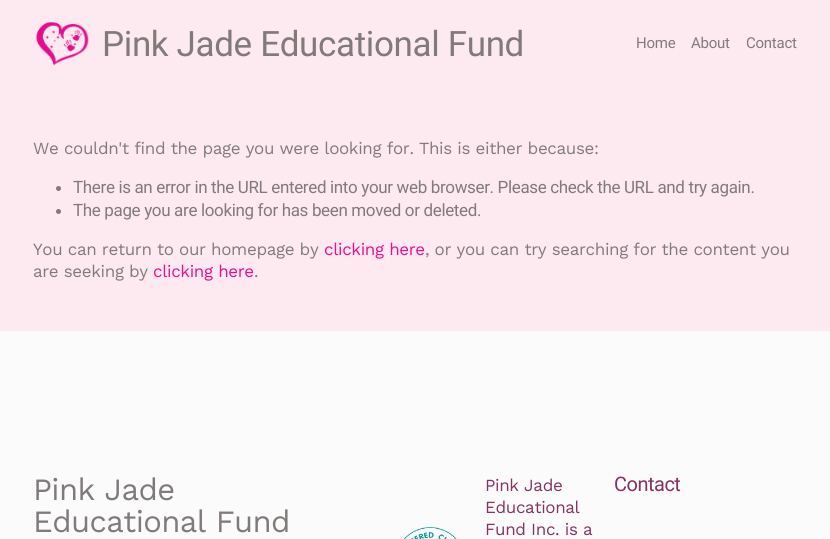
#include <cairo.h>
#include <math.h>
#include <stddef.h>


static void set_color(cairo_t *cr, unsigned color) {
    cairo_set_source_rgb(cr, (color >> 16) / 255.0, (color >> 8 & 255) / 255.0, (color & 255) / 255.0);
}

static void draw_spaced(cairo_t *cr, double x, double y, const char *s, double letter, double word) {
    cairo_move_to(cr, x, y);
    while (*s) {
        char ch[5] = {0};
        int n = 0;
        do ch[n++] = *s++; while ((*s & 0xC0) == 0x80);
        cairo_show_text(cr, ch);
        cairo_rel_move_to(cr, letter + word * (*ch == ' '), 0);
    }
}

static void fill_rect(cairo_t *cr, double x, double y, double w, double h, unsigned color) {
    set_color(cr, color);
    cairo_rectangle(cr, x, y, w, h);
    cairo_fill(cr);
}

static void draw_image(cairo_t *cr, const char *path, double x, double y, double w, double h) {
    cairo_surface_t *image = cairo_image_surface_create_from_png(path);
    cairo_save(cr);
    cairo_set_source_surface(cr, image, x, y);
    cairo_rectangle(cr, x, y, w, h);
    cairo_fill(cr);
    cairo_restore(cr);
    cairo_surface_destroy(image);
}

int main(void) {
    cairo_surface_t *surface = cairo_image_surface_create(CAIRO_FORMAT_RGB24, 830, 539);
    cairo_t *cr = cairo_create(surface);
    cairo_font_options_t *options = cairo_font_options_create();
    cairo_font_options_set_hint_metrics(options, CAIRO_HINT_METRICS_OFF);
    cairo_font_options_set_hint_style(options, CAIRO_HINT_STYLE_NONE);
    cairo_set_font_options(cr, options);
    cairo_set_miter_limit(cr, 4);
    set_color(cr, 0xFDEAF1);
    cairo_paint(cr);
    draw_image(cr, "assets/img1.png", 36, 21, 53, 45);
    cairo_select_font_face(cr, "Roboto", CAIRO_FONT_SLANT_NORMAL, CAIRO_FONT_WEIGHT_NORMAL);
    cairo_set_font_size(cr, 35);
    set_color(cr, 0x817A7A);
    draw_spaced(cr, 102, 56, "Pink Jade Educational Fund", -0.35, 0);
    cairo_set_font_size(cr, 15);
    draw_spaced(cr, 636, 48, "Home", -0.25, 0);
    draw_spaced(cr, 691, 48, "About", -0.25, 0);
    draw_spaced(cr, 746, 48, "Contact", -0.25, 0);
    cairo_select_font_face(cr, "Work Sans", CAIRO_FONT_SLANT_NORMAL, CAIRO_FONT_WEIGHT_NORMAL);
    cairo_set_font_size(cr, 17);
    draw_spaced(cr, 33, 154, "We couldn't find the page you were looking for. This is either because:", -0.35, 0);
    cairo_new_path(cr);
    cairo_arc(cr, 58.5, 188.5, 2.5, 0, 2 * M_PI);
    cairo_fill(cr);
    cairo_select_font_face(cr, "Roboto", CAIRO_FONT_SLANT_NORMAL, CAIRO_FONT_WEIGHT_NORMAL);
    draw_spaced(cr, 73, 193, "There is an error in the URL entered into your web browser. Please check the URL and try again.", -0.35, 0);
    cairo_new_path(cr);
    cairo_arc(cr, 58.5, 211.5, 2.5, 0, 2 * M_PI);
    cairo_fill(cr);
    draw_spaced(cr, 73, 216, "The page you are looking for has been moved or deleted.", -0.35, 0);
    cairo_select_font_face(cr, "Work Sans", CAIRO_FONT_SLANT_NORMAL, CAIRO_FONT_WEIGHT_NORMAL);
    draw_spaced(cr, 33, 255, "You can return to our homepage by", -0.35, 0);
    set_color(cr, 0xEA0D8C);
    draw_spaced(cr, 324, 255, "clicking here", -0.35, 0);
    set_color(cr, 0x817A7A);
    draw_spaced(cr, 425, 255, ", or you can try searching for the content you", -0.35, 0);
    draw_spaced(cr, 33, 277, "are seeking by", -0.35, 0);
    set_color(cr, 0xEA0D8C);
    draw_spaced(cr, 153, 277, "clicking here", -0.35, 0);
    set_color(cr, 0x817A7A);
    draw_spaced(cr, 254, 277, ".", -0.35, 0);
    fill_rect(cr, 0, 331, 830, 208, 0xFBFBFB);
    cairo_set_font_size(cr, 31);
    set_color(cr, 0x817A7A);
    draw_spaced(cr, 33, 500, "Pink Jade", -0.6, 0);
    draw_spaced(cr, 33, 532, "Educational Fund", -0.6, 0);
    draw_image(cr, "assets/img2.png", 403, 527, 54, 12);
    cairo_set_font_size(cr, 17);
    set_color(cr, 0x853262);
    draw_spaced(cr, 485, 491, "Pink Jade", -0.35, 0);
    draw_spaced(cr, 485, 513, "Educational", -0.35, 0);
    draw_spaced(cr, 485, 535, "Fund Inc. is a", -0.35, 0);
    cairo_select_font_face(cr, "Roboto", CAIRO_FONT_SLANT_NORMAL, CAIRO_FONT_WEIGHT_NORMAL);
    cairo_set_font_size(cr, 20);
    draw_spaced(cr, 614, 491, "Contact", -0.5, 0);
    cairo_surface_write_to_png(surface, "output.png");
    cairo_font_options_destroy(options);
    cairo_destroy(cr);
    cairo_surface_destroy(surface);
    return 0;
}
